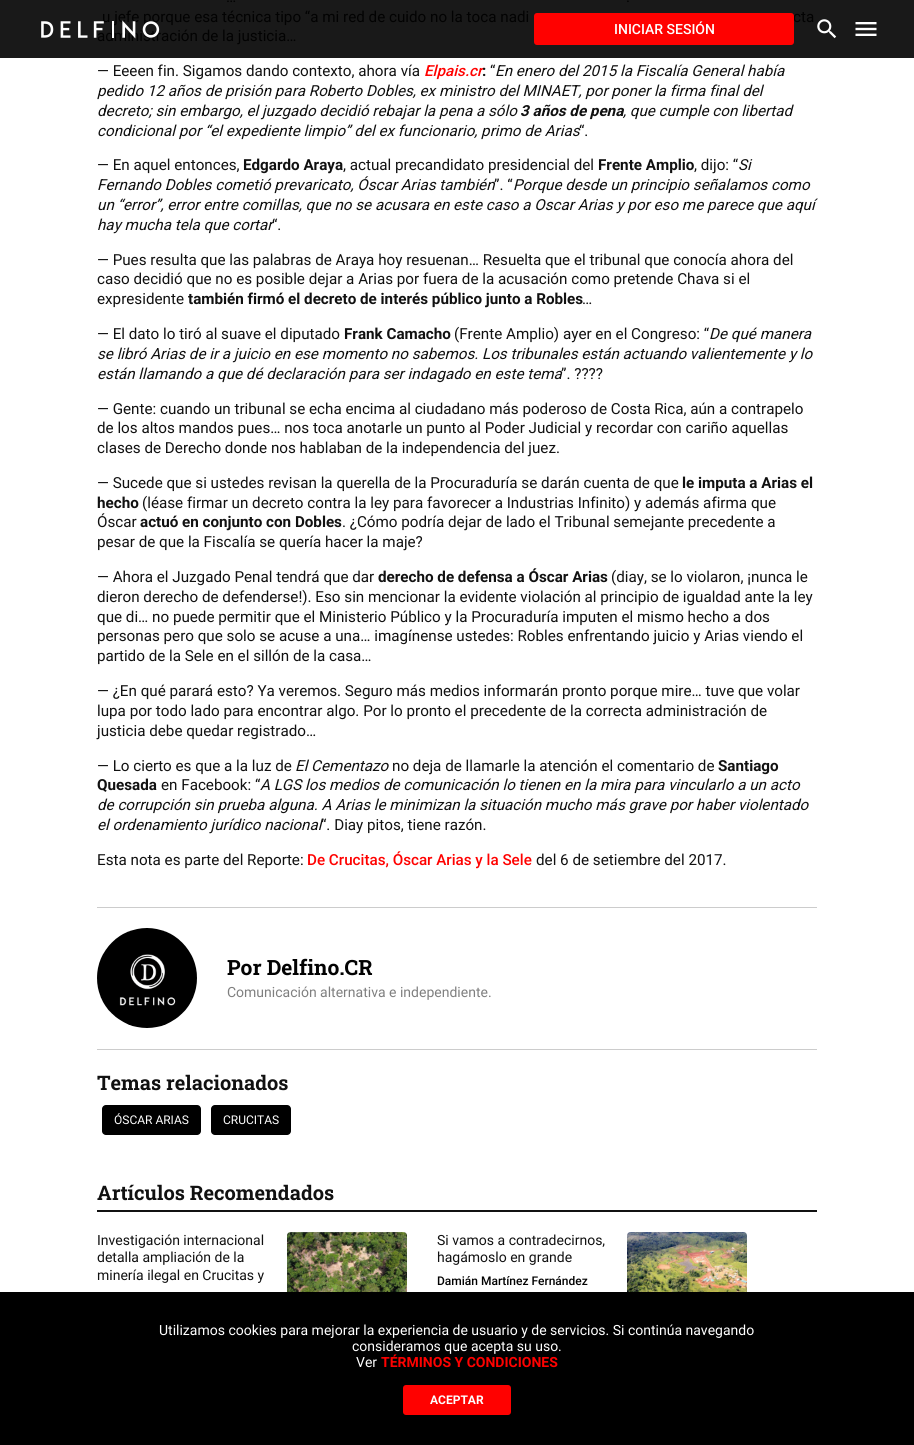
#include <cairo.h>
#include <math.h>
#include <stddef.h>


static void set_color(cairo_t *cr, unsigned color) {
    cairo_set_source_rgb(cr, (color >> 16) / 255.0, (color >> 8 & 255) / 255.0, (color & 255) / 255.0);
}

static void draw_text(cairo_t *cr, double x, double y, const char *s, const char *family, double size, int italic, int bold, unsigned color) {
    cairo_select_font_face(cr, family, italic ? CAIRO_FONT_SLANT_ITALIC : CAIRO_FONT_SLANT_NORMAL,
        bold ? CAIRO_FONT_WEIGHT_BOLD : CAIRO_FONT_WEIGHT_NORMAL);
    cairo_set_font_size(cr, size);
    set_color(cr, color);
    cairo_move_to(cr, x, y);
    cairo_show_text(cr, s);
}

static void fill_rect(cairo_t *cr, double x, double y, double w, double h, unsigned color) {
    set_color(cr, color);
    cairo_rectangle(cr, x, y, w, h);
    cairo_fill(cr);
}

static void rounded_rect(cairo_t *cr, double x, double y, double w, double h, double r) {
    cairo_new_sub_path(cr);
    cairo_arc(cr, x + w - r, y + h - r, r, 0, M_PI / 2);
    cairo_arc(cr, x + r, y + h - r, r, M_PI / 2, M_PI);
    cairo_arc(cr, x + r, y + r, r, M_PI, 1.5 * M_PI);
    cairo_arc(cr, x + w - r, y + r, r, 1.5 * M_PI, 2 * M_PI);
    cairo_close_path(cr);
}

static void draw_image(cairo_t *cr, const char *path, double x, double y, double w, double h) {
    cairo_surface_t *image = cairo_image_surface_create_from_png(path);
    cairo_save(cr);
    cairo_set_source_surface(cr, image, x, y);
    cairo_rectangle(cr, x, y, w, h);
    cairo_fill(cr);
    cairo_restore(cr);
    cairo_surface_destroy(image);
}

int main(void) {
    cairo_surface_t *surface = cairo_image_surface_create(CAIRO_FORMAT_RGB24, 914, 1445);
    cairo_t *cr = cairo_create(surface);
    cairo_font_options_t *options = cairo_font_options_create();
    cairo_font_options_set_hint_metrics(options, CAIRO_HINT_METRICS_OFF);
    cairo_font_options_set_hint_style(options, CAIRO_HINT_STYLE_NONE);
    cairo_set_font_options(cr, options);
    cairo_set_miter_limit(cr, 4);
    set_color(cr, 0xFFFFFF);
    cairo_paint(cr);
    fill_rect(cr, 0, 0, 914, 58, 0x191919);
    draw_text(cr, 226, 2, "…", "Roboto", 15.2, 0, 0, 0x020202);
    draw_text(cr, 626, 2, ".", "Roboto", 15.2, 0, 0, 0x020202);
    draw_text(cr, 102, 22, "u jefe porque esa técnica tipo “a mi red de cuido no la toca nadi", "Roboto", 15.2, 0, 0, 0x020202);
    draw_text(cr, 793, 22, "cta", "Roboto", 15.2, 0, 0, 0x020202);
    draw_text(cr, 97, 41, "administración de la justicia…", "Roboto", 15.2, 0, 0, 0x020202);
    draw_text(cr, 97, 76, "— Eeeen fin. Sigamos dando contexto, ahora vía", "Roboto", 15.2, 0, 0, 0x111111);
    draw_text(cr, 424, 76, "Elpais.cr", "Roboto Medium", 15.2, 1, 0, 0xFF0100);
    draw_text(cr, 490, 76, "“", "Roboto", 15.2, 0, 0, 0x111111);
    draw_text(cr, 495, 76, "En enero del 2015 la Fiscalía General había", "Roboto", 15.2, 1, 0, 0x111111);
    draw_text(cr, 482, 76, ":", "Roboto", 15.2, 0, 1, 0x111111);
    draw_text(cr, 97, 96, "pedido 12 años de prisión para Roberto Dobles, ex ministro del MINAET, por poner la firma final del", "Roboto", 15.2, 1, 0, 0x111111);
    draw_text(cr, 97, 116, "decreto; sin embargo, el juzgado decidió rebajar la pena a sólo", "Roboto", 15.2, 1, 0, 0x111111);
    draw_text(cr, 520, 116, "3 años de pena", "Roboto", 15.2, 1, 1, 0x111111);
    draw_text(cr, 623, 116, ", que cumple con libertad", "Roboto", 15.2, 1, 0, 0x111111);
    draw_text(cr, 97, 136, "condicional por “el expediente limpio” del ex funcionario, primo de Arias", "Roboto", 15.2, 1, 0, 0x111111);
    draw_text(cr, 579, 136, "“.", "Roboto", 15.2, 0, 0, 0x111111);
    draw_text(cr, 97, 170, "— En aquel entonces,", "Roboto", 15.2, 0, 0, 0x111111);
    draw_text(cr, 243, 170, "Edgardo Araya", "Roboto", 15.2, 0, 1, 0x111111);
    draw_text(cr, 343, 170, ", actual precandidato presidencial del", "Roboto", 15.2, 0, 0, 0x111111);
    draw_text(cr, 598, 170, "Frente Amplio", "Roboto", 15.2, 0, 1, 0x111111);
    draw_text(cr, 694, 170, ", dijo: “", "Roboto", 15.2, 0, 0, 0x111111);
    draw_text(cr, 738, 170, "Si", "Roboto", 15.2, 1, 0, 0x111111);
    draw_text(cr, 97, 190, "Fernando Dobles cometió prevaricato, Óscar Arias también", "Roboto", 15.2, 1, 0, 0x111111);
    draw_text(cr, 494, 190, "”. “", "Roboto", 15.2, 0, 0, 0x111111);
    draw_text(cr, 513, 190, "Porque desde un principio señalamos como", "Roboto", 15.2, 1, 0, 0x111111);
    draw_text(cr, 97, 210, "un “error”, error entre comillas, que no se acusara en este caso a Oscar Arias y por eso me parece que aquí", "Roboto", 15.2, 1, 0, 0x111111);
    draw_text(cr, 97, 230, "hay mucha tela que cortar", "Roboto", 15.2, 1, 0, 0x111111);
    draw_text(cr, 272, 230, "“.", "Roboto", 15.2, 0, 0, 0x111111);
    draw_text(cr, 97, 265, "— Pues resulta que las palabras de Araya hoy resuenan… Resuelta que el tribunal que conocía ahora del", "Roboto", 15.2, 0, 0, 0x111111);
    draw_text(cr, 97, 284, "caso decidió que no es posible dejar a Arias por fuera de la acusación como pretende Chava si el", "Roboto", 15.2, 0, 0, 0x111111);
    draw_text(cr, 97, 304, "expresidente", "Roboto", 15.2, 0, 0, 0x111111);
    draw_text(cr, 188, 304, "también firmó el decreto de interés público junto a Robles", "Roboto", 15.2, 0, 1, 0x111111);
    draw_text(cr, 582, 304, "…", "Roboto", 15.2, 0, 0, 0x111111);
    draw_text(cr, 97, 339, "— El dato lo tiró al suave el diputado", "Roboto", 15.2, 0, 0, 0x111111);
    draw_text(cr, 344, 339, "Frank Camacho", "Roboto", 15.2, 0, 1, 0x111111);
    draw_text(cr, 454, 339, "(Frente Amplio) ayer en el Congreso: “", "Roboto", 15.2, 0, 0, 0x111111);
    draw_text(cr, 709, 339, "De qué manera", "Roboto", 15.2, 1, 0, 0x111111);
    draw_text(cr, 97, 359, "se libró Arias de ir a juicio en ese momento no sabemos. Los tribunales están actuando valientemente y lo", "Roboto", 15.2, 1, 0, 0x111111);
    draw_text(cr, 97, 379, "están llamando a que dé declaración para ser indagado en este tema", "Roboto", 15.2, 1, 0, 0x111111);
    draw_text(cr, 561, 379, "”. ?\077?\077", "Roboto", 15.2, 0, 0, 0x111111);
    draw_text(cr, 97, 414, "— Gente: cuando un tribunal se echa encima al ciudadano más poderoso de Costa Rica, aún a contrapelo", "Roboto", 15.2, 0, 0, 0x111111);
    draw_text(cr, 97, 433, "de los altos mandos pues… nos toca anotarle un punto al Poder Judicial y recordar con cariño aquellas", "Roboto", 15.2, 0, 0, 0x111111);
    draw_text(cr, 97, 453, "clases de Derecho donde nos hablaban de la independencia del juez.", "Roboto", 15.2, 0, 0, 0x111111);
    draw_text(cr, 97, 488, "— Sucede que si ustedes revisan la querella de la Procuraduría se darán cuenta de que", "Roboto", 15.2, 0, 0, 0x111111);
    draw_text(cr, 682, 488, "le imputa a Arias el", "Roboto", 15.2, 0, 1, 0x111111);
    draw_text(cr, 97, 508, "hecho", "Roboto", 15.2, 0, 1, 0x111111);
    draw_text(cr, 142, 508, "(léase firmar un decreto contra la ley para favorecer a Industrias Infinito) y además afirma que", "Roboto", 15.2, 0, 0, 0x111111);
    draw_text(cr, 97, 527, "Óscar", "Roboto", 15.2, 0, 0, 0x111111);
    draw_text(cr, 140, 527, "actuó en conjunto con Dobles", "Roboto", 15.2, 0, 1, 0x111111);
    draw_text(cr, 342, 527, ". ¿Cómo podría dejar de lado el Tribunal semejante precedente a", "Roboto", 15.2, 0, 0, 0x111111);
    draw_text(cr, 97, 547, "pesar de que la Fiscalía se quería hacer la maje?", "Roboto", 15.2, 0, 0, 0x111111);
    draw_text(cr, 97, 582, "— Ahora el Juzgado Penal tendrá que dar", "Roboto", 15.2, 0, 0, 0x111111);
    draw_text(cr, 378, 582, "derecho de defensa a Óscar Arias", "Roboto", 15.2, 0, 1, 0x111111);
    draw_text(cr, 611, 582, "(diay, se lo violaron, ¡nunca le", "Roboto", 15.2, 0, 0, 0x111111);
    draw_text(cr, 97, 602, "dieron derecho de defenderse!). Eso sin mencionar la evidente violación al principio de igualdad ante la ley", "Roboto", 15.2, 0, 0, 0x111111);
    draw_text(cr, 97, 622, "que di… no puede permitir que el Ministerio Público y la Procuraduría imputen el mismo hecho a dos", "Roboto", 15.2, 0, 0, 0x111111);
    draw_text(cr, 97, 641, "personas pero que solo se acuse a una… imagínense ustedes: Robles enfrentando juicio y Arias viendo el", "Roboto", 15.2, 0, 0, 0x111111);
    draw_text(cr, 97, 661, "partido de la Sele en el sillón de la casa…", "Roboto", 15.2, 0, 0, 0x111111);
    draw_text(cr, 97, 696, "— ¿En qué parará esto? Ya veremos. Seguro más medios informarán pronto porque mire… tuve que volar", "Roboto", 15.2, 0, 0, 0x111111);
    draw_text(cr, 97, 716, "lupa por todo lado para encontrar algo. Por lo pronto el precedente de la correcta administración de", "Roboto", 15.2, 0, 0, 0x111111);
    draw_text(cr, 97, 736, "justicia debe quedar registrado…", "Roboto", 15.2, 0, 0, 0x111111);
    draw_text(cr, 97, 771, "— Lo cierto es que a la luz de", "Roboto", 15.2, 0, 0, 0x111111);
    draw_text(cr, 295, 771, "El Cementazo", "Roboto", 15.2, 1, 0, 0x111111);
    draw_text(cr, 392, 771, "no deja de llamarle la atención el comentario de", "Roboto", 15.2, 0, 0, 0x111111);
    draw_text(cr, 718, 771, "Santiago", "Roboto", 15.2, 0, 1, 0x111111);
    draw_text(cr, 97, 790, "Quesada", "Roboto", 15.2, 0, 1, 0x111111);
    draw_text(cr, 161, 790, "en Facebook: “", "Roboto", 15.2, 0, 0, 0x111111);
    draw_text(cr, 260, 790, "A LGS los medios de comunicación lo tienen en la mira para vincularlo a un acto", "Roboto", 15.2, 1, 0, 0x111111);
    draw_text(cr, 97, 810, "de corrupción sin prueba alguna. A Arias le minimizan la situación mucho más grave por haber violentado", "Roboto", 15.2, 1, 0, 0x111111);
    draw_text(cr, 97, 830, "el ordenamiento jurídico nacional", "Roboto", 15.2, 1, 0, 0x111111);
    draw_text(cr, 321, 830, "“. Diay pitos, tiene razón.", "Roboto", 15.2, 0, 0, 0x111111);
    draw_text(cr, 97, 865, "Esta nota es parte del Reporte:", "Roboto", 15.2, 0, 0, 0x111111);
    draw_text(cr, 307, 865, "De Crucitas, Óscar Arias y la Sele", "Roboto Medium", 15.2, 0, 0, 0xFF0100);
    draw_text(cr, 536, 865, "del 6 de setiembre del 2017.", "Roboto", 15.2, 0, 0, 0x111111);
    fill_rect(cr, 97, 907, 720, 1, 0xCCCCCC);
    draw_image(cr, "assets/img1.png", 97, 928, 100, 100);
    draw_text(cr, 227, 975, "Por Delfino.CR", "Roboto Slab", 21, 0, 1, 0x020202);
    draw_text(cr, 227, 997, "Comunicación alternativa e independiente.", "Roboto", 14, 0, 0, 0x7F7F7F);
    fill_rect(cr, 97, 1049, 720, 1, 0xCCCCCC);
    draw_text(cr, 97, 1090, "Temas relacionados", "Roboto Slab", 20, 0, 1, 0x111111);
    set_color(cr, 0x000000);
    rounded_rect(cr, 102, 1105, 99, 30, 4);
    cairo_fill(cr);
    draw_text(cr, 114, 1124, "ÓSCAR ARIAS", "Roboto", 12, 0, 0, 0xFFFFFF);
    set_color(cr, 0x000000);
    rounded_rect(cr, 211, 1105, 80, 30, 4);
    cairo_fill(cr);
    draw_text(cr, 223, 1124, "CRUCITAS", "Roboto", 12, 0, 0, 0xFFFFFF);
    fill_rect(cr, 97, 1210, 720, 2, 0x111111);
    draw_text(cr, 97, 1200, "Artículos Recomendados", "Roboto Slab", 20, 0, 1, 0x111111);
    draw_text(cr, 97, 1245, "Investigación internacional", "Roboto", 14, 0, 0, 0x111111);
    draw_text(cr, 97, 1262, "detalla ampliación de la", "Roboto", 14, 0, 0, 0x111111);
    draw_text(cr, 97, 1280, "minería ilegal en Crucitas y", "Roboto", 14, 0, 0, 0x111111);
    draw_image(cr, "assets/img2.png", 287, 1232, 120, 60);
    draw_text(cr, 437, 1245, "Si vamos a contradecirnos,", "Roboto", 14, 0, 0, 0x111111);
    draw_text(cr, 437, 1262, "hagámoslo en grande", "Roboto", 14, 0, 0, 0x111111);
    draw_text(cr, 437, 1285, "Damián Martínez Fernández", "Roboto Medium", 12, 0, 0, 0x020202);
    draw_image(cr, "assets/img3.png", 627, 1232, 120, 60);
    draw_image(cr, "assets/img4.png", 41, 20, 119, 19);
    set_color(cr, 0xFF0100);
    rounded_rect(cr, 535, 14, 258, 30, 2);
    cairo_fill_preserve(cr);
    cairo_stroke(cr);
    draw_text(cr, 614, 34, "INICIAR SESIÓN", "Roboto Medium", 14, 0, 0, 0xFFFFFF);
    draw_image(cr, "assets/img5.png", 817, 19, 20, 20);
    draw_image(cr, "assets/img6.png", 855, 22, 22, 14);
    fill_rect(cr, 0, 1292, 914, 153, 0x000000);
    draw_text(cr, 159, 1335, "Utilizamos cookies para mejorar la experiencia de usuario y de servicios. Si continúa navegando", "Roboto", 14, 0, 0, 0xFFFFFF);
    draw_text(cr, 352, 1351, "consideramos que acepta su uso.", "Roboto", 14, 0, 0, 0xFFFFFF);
    draw_text(cr, 356, 1367, "Ver", "Roboto", 14, 0, 0, 0xFFFFFF);
    draw_text(cr, 381, 1367, "TÉRMINOS Y CONDICIONES", "Roboto", 14, 0, 1, 0xFF0100);
    rounded_rect(cr, 404, 1386, 106, 28, 2);
    cairo_fill_preserve(cr);
    cairo_stroke(cr);
    draw_text(cr, 430, 1404, "ACEPTAR", "Roboto", 12, 0, 1, 0xFFFFFF);
    cairo_surface_write_to_png(surface, "output.png");
    cairo_font_options_destroy(options);
    cairo_destroy(cr);
    cairo_surface_destroy(surface);
    return 0;
}
